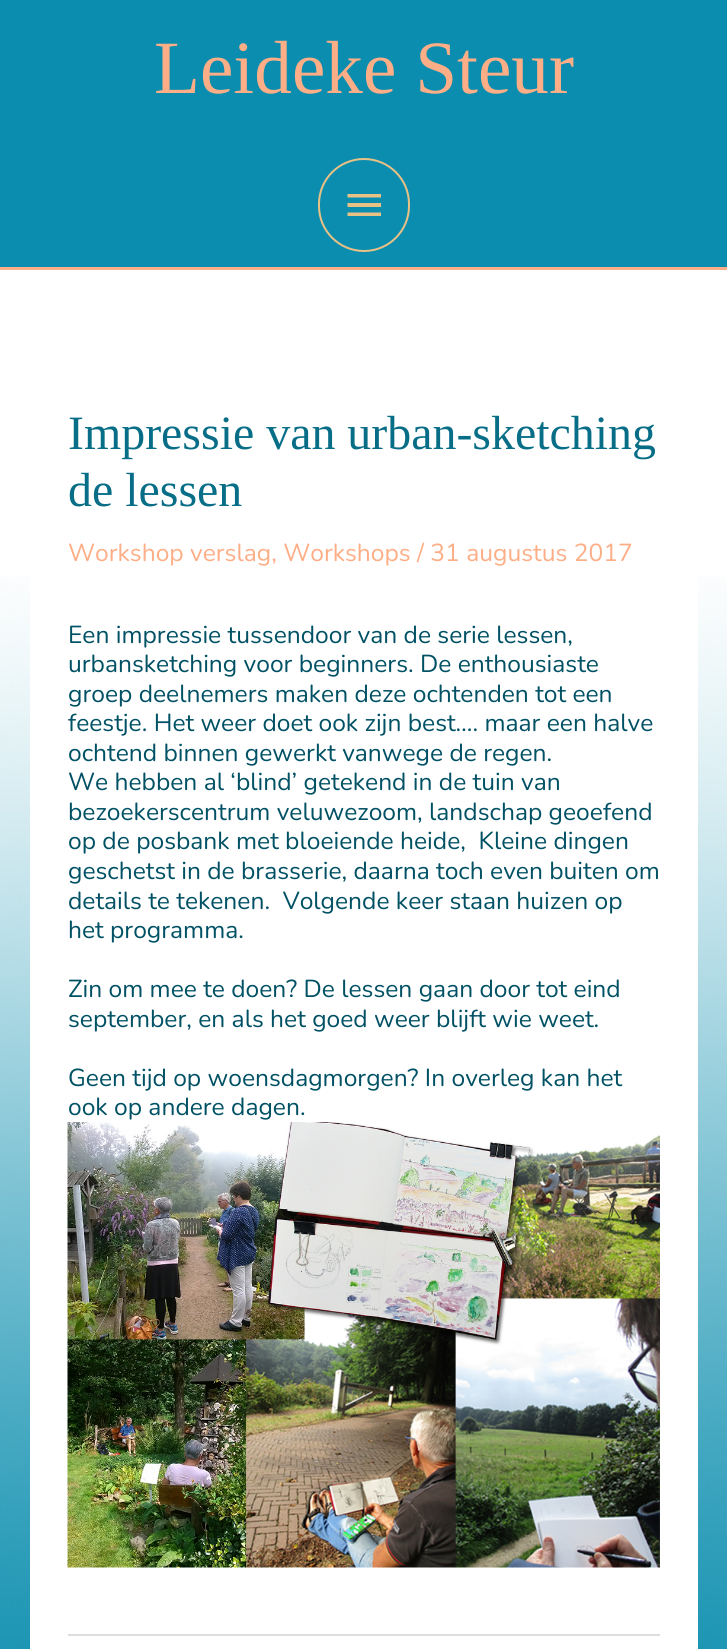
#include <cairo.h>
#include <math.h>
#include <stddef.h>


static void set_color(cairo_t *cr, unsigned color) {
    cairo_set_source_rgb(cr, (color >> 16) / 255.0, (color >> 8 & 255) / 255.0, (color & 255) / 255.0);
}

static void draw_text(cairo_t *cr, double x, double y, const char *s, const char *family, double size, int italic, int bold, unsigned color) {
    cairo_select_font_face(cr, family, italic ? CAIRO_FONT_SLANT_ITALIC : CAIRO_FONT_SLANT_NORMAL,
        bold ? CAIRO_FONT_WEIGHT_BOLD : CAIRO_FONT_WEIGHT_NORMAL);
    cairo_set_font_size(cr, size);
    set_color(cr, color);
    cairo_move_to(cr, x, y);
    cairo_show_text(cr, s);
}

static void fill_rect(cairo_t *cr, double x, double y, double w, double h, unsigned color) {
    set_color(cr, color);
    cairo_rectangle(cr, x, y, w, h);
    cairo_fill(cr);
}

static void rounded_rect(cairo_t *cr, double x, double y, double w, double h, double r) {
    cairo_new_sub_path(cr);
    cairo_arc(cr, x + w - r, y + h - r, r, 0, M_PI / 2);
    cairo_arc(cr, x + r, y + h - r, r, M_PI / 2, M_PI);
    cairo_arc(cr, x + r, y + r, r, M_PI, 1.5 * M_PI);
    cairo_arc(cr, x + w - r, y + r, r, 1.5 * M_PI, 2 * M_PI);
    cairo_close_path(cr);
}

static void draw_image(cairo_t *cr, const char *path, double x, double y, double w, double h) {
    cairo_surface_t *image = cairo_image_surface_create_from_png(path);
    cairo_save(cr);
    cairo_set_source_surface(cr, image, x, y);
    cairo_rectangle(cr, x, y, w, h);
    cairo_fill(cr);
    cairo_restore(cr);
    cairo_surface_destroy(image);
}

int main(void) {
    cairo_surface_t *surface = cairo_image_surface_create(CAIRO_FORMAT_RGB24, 727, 1649);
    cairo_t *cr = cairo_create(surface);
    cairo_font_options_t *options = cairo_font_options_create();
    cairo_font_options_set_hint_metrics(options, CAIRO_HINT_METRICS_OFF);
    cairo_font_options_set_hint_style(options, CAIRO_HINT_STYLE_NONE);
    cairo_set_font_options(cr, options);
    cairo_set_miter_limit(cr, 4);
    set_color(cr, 0xFFFFFF);
    cairo_paint(cr);
    draw_image(cr, "assets/img1.png", 0, 576, 727, 1073);
    fill_rect(cr, 0, 0, 727, 267, 0x0A8DAE);
    fill_rect(cr, 0, 267, 727, 3, 0xFDAE86);
    draw_text(cr, 154, 93, "Leideke Steur", "Liberation Serif", 75.25, 0, 0, 0xFDAE86);
    rounded_rect(cr, 319, 159, 90, 92, 45);
    set_color(cr, 0xE9C185);
    cairo_stroke(cr);
    cairo_new_path(cr);
    cairo_move_to(cr, 347.5, 194);
    cairo_line_to(cr, 381, 194);
    cairo_line_to(cr, 381, 197.5);
    cairo_line_to(cr, 347.5, 197.5);
    cairo_close_path(cr);
    cairo_move_to(cr, 347.5, 207);
    cairo_line_to(cr, 347.5, 203);
    cairo_line_to(cr, 381, 203);
    cairo_line_to(cr, 381, 207);
    cairo_close_path(cr);
    cairo_move_to(cr, 347.5, 216);
    cairo_line_to(cr, 347.5, 212.5);
    cairo_line_to(cr, 381, 212.5);
    cairo_line_to(cr, 381, 216);
    cairo_close_path(cr);
    cairo_fill(cr);
    fill_rect(cr, 30, 576, 668, 1073, 0xFFFFFF);
    draw_text(cr, 68, 449, "Impressie van urban-sketching", "Liberation Serif", 47.9, 0, 0, 0x086E87);
    draw_text(cr, 68, 506, "de lessen", "Liberation Serif", 47.9, 0, 0, 0x086E87);
    draw_text(cr, 68, 561, "Workshop verslag, Workshops / 31 augustus 2017", "Nunito ExtraLight", 24.6, 0, 0, 0xFDAE86);
    draw_text(cr, 68, 643, "Een impressie tussendoor van de serie lessen,", "Nunito ExtraLight", 24.6, 0, 0, 0x015165);
    draw_text(cr, 68, 672, "urbansketching voor beginners. De enthousiaste", "Nunito ExtraLight", 24.6, 0, 0, 0x015165);
    draw_text(cr, 68, 702, "groep deelnemers maken deze ochtenden tot een", "Nunito ExtraLight", 24.6, 0, 0, 0x015165);
    draw_text(cr, 68, 731, "feestje. Het weer doet ook zijn best…. maar een halve", "Nunito ExtraLight", 24.6, 0, 0, 0x015165);
    draw_text(cr, 68, 761, "ochtend binnen gewerkt vanwege de regen.", "Nunito ExtraLight", 24.6, 0, 0, 0x015165);
    draw_text(cr, 68, 790, "We hebben al ‘blind’ getekend in de tuin van", "Nunito ExtraLight", 24.6, 0, 0, 0x015165);
    draw_text(cr, 68, 820, "bezoekerscentrum veluwezoom, landschap geoefend", "Nunito ExtraLight", 24.6, 0, 0, 0x015165);
    draw_text(cr, 68, 849, "op de posbank met bloeiende heide,  Kleine dingen", "Nunito ExtraLight", 24.6, 0, 0, 0x015165);
    draw_text(cr, 68, 879, "geschetst in de brasserie, daarna toch even buiten om", "Nunito ExtraLight", 24.6, 0, 0, 0x015165);
    draw_text(cr, 68, 909, "details te tekenen.  Volgende keer staan huizen op", "Nunito ExtraLight", 24.6, 0, 0, 0x015165);
    draw_text(cr, 68, 938, "het programma.", "Nunito ExtraLight", 24.6, 0, 0, 0x015165);
    draw_text(cr, 68, 997, "Zin om mee te doen? De lessen gaan door tot eind", "Nunito ExtraLight", 24.6, 0, 0, 0x015165);
    draw_text(cr, 68, 1027, "september, en als het goed weer blijft wie weet.", "Nunito ExtraLight", 24.6, 0, 0, 0x015165);
    draw_text(cr, 68, 1086, "Geen tijd op woensdagmorgen? In overleg kan het", "Nunito ExtraLight", 24.6, 0, 0, 0x015165);
    draw_text(cr, 68, 1115, "ook op andere dagen.", "Nunito ExtraLight", 24.6, 0, 0, 0x015165);
    draw_image(cr, "assets/img2.png", 67, 1122, 593, 446);
    fill_rect(cr, 68, 1634, 592, 2, 0xDDDDDD);
    cairo_surface_write_to_png(surface, "output.png");
    cairo_font_options_destroy(options);
    cairo_destroy(cr);
    cairo_surface_destroy(surface);
    return 0;
}
